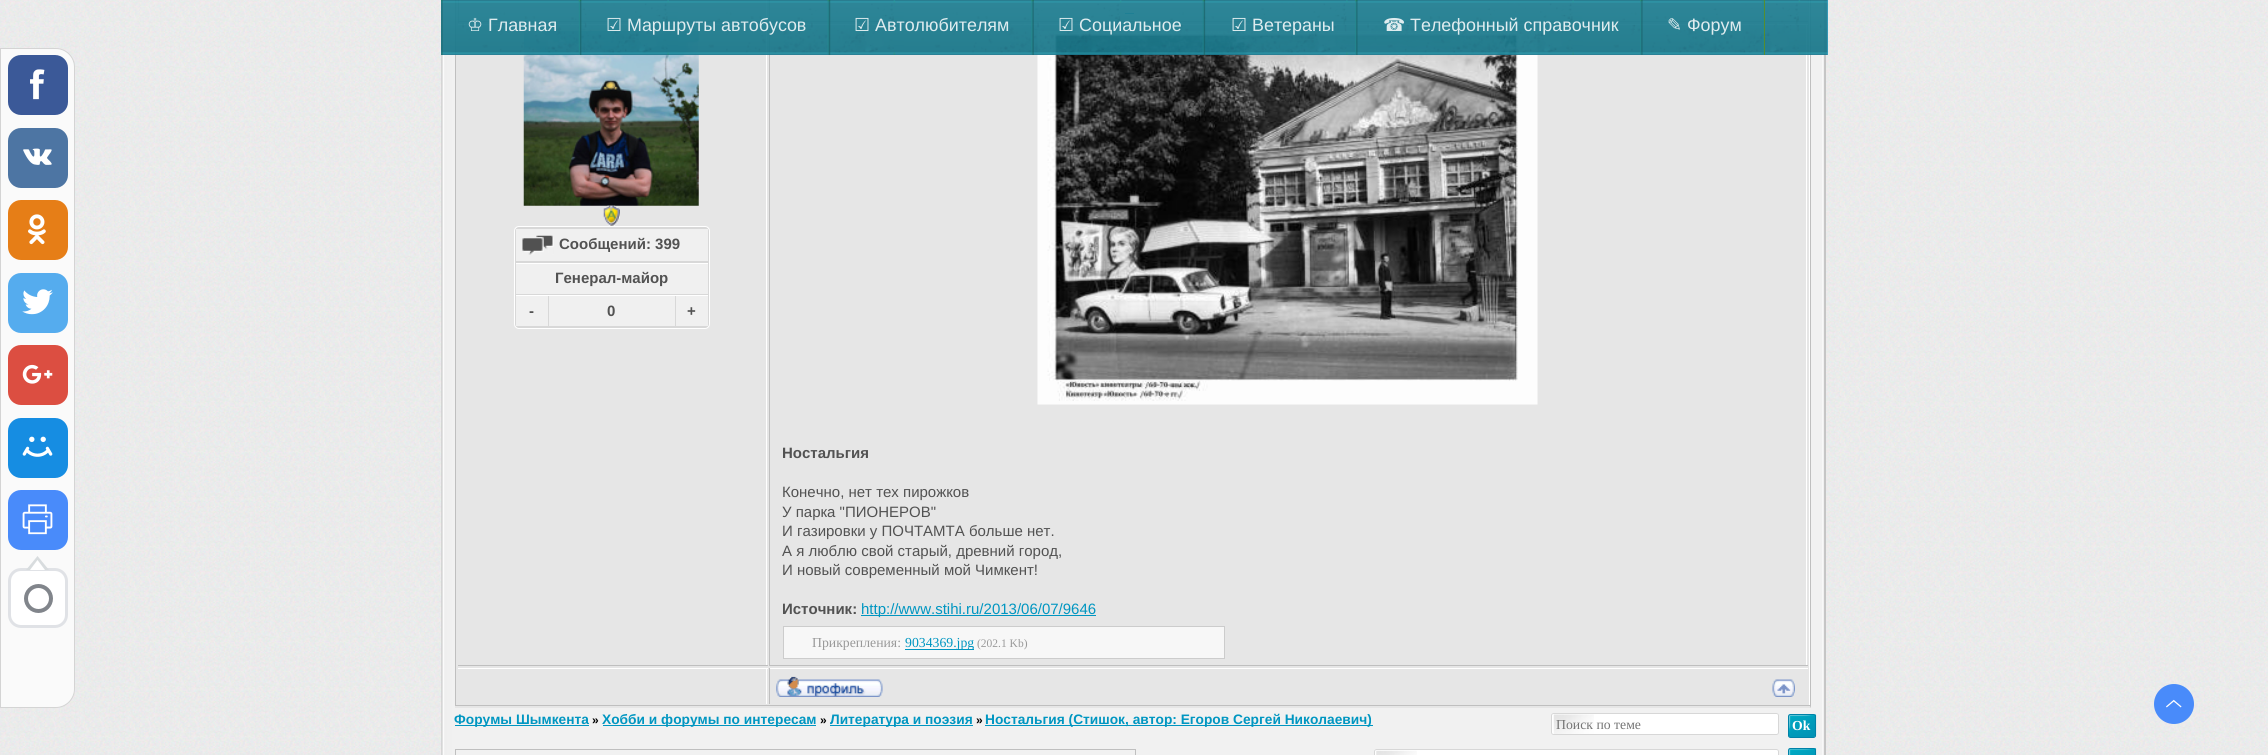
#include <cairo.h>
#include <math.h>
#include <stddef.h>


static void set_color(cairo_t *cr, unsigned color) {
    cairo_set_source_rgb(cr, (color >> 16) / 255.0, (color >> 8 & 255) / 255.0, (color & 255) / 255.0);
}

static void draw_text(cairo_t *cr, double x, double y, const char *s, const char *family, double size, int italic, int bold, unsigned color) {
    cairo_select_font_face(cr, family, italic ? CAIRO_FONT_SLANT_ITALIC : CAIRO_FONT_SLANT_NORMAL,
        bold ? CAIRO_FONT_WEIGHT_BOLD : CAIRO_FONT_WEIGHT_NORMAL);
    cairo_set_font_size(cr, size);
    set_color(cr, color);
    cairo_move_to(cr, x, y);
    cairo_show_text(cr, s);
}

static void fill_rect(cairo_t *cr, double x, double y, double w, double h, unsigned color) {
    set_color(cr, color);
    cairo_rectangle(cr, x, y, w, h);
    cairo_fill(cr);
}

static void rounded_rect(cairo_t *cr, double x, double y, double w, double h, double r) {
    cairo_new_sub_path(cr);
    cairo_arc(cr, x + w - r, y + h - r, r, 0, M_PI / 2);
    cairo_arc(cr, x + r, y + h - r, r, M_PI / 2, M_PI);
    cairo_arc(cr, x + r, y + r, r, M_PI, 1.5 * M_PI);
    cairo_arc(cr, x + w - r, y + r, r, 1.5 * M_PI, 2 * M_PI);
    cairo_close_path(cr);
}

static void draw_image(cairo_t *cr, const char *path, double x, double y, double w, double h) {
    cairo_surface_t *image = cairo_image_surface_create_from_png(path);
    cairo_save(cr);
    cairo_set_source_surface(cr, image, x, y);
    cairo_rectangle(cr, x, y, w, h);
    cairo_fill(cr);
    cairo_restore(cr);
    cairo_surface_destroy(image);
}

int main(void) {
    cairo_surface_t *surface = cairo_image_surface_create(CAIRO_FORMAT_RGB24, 2268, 755);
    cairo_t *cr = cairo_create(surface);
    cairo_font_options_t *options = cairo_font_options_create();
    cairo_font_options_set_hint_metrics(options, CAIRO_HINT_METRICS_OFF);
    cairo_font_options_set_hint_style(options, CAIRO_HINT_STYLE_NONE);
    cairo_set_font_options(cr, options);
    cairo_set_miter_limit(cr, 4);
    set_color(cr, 0xFFFFFF);
    cairo_paint(cr);
    draw_image(cr, "assets/img1.png", 0, 0, 2268, 755);
    draw_image(cr, "assets/img25.png", 441, 0, 1385, 755);
    fill_rect(cr, 455, 0, 1356, 708, 0xE6E6E6);
    set_color(cr, 0xBFBFBF);
    cairo_new_path(cr);
    cairo_move_to(cr, 1811, -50);
    cairo_line_to(cr, 1811, 708);
    cairo_line_to(cr, 1810, 706);
    cairo_line_to(cr, 1810, -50);
    cairo_close_path(cr);
    cairo_fill(cr);
    fill_rect(cr, 1809, 0, 1, 706, 0xFFFFFF);
    fill_rect(cr, 455, 705, 1355, 1, 0xBFBFBF);
    fill_rect(cr, 455, 0, 1, 706, 0xBFBFBF);
    draw_image(cr, "assets/img26.png", 457, 0, 311, 10);
    fill_rect(cr, 766, 0, 1, 23, 0xFFFFFF);
    fill_rect(cr, 458, 21, 310, 1, 0xBFBFBF);
    fill_rect(cr, 458, 0, 1, 23, 0xBFBFBF);
    draw_image(cr, "assets/img27.png", 770, 0, 1038, 8);
    fill_rect(cr, 769, 21, 1039, 1, 0xBFBFBF);
    fill_rect(cr, 769, 0, 1, 23, 0xBFBFBF);
    fill_rect(cr, 1125, 13, 9, 1, 0x0096C1);
    fill_rect(cr, 458, 24, 310, 1, 0xFFFFFF);
    fill_rect(cr, 766, 24, 1, 642, 0xFFFFFF);
    draw_image(cr, "assets/img28.png", 523, 30, 176, 176);
    fill_rect(cr, 769, 24, 1039, 1, 0xFFFFFF);
    fill_rect(cr, 1806, 24, 1, 642, 0xFFFFFF);
    fill_rect(cr, 769, 665, 1039, 1, 0xBFBFBF);
    fill_rect(cr, 769, 24, 1, 642, 0xBFBFBF);
    draw_image(cr, "assets/img31.png", 1037, 30, 501, 375);
    cairo_set_source_rgba(cr, 0.137, 0.631, 0.816, 0.85);
    cairo_rectangle(cr, 441, 0, 1387, 55);
    cairo_fill(cr);
    draw_image(cr, "assets/img2.png", 441, 0, 1387, 55);
    cairo_set_source_rgba(cr, 0.365, 0.557, 0.133, 0.85);
    cairo_rectangle(cr, 1764, 0, 1, 55);
    cairo_fill(cr);
    draw_image(cr, "assets/img3.png", 441, 0, 2, 55);
    draw_image(cr, "assets/img4.png", 578, 0, 2, 54);
    draw_text(cr, 467, 31, "♔", "DejaVu Sans", 17.9, 0, 0, 0xDFECEF);
    draw_text(cr, 488, 31, "Главная", "Liberation Sans", 17.9, 0, 0, 0xDFECEF);
    draw_image(cr, "assets/img5.png", 580, 0, 2, 55);
    draw_image(cr, "assets/img6.png", 827, 0, 2, 54);
    draw_text(cr, 606, 31, "☑", "DejaVu Sans", 17.9, 0, 0, 0xDFECEF);
    draw_text(cr, 627, 31, "Маршруты автобусов", "Liberation Sans", 17.9, 0, 0, 0xDFECEF);
    draw_image(cr, "assets/img7.png", 828, 0, 3, 55);
    draw_image(cr, "assets/img8.png", 1031, 0, 2, 54);
    draw_text(cr, 854, 31, "☑", "DejaVu Sans", 17.9, 0, 0, 0xDFECEF);
    draw_text(cr, 875, 31, "Автолюбителям", "Liberation Sans", 17.9, 0, 0, 0xDFECEF);
    draw_image(cr, "assets/img9.png", 1032, 0, 2, 55);
    draw_image(cr, "assets/img10.png", 1202, 0, 2, 52);
    draw_text(cr, 1058, 31, "☑", "DejaVu Sans", 17.9, 0, 0, 0xDFECEF);
    draw_text(cr, 1079, 31, "Социальное", "Liberation Sans", 17.9, 0, 0, 0xDFECEF);
    draw_image(cr, "assets/img11.png", 1203, 0, 3, 55);
    draw_image(cr, "assets/img12.png", 1355, 0, 2, 54);
    draw_text(cr, 1231, 31, "☑", "DejaVu Sans", 17.9, 0, 0, 0xDFECEF);
    draw_text(cr, 1252, 31, "Ветераны", "Liberation Sans", 17.9, 0, 0, 0xDFECEF);
    draw_image(cr, "assets/img13.png", 1356, 0, 2, 55);
    draw_image(cr, "assets/img14.png", 1640, 0, 1, 54);
    draw_text(cr, 1383, 31, "☎", "DejaVu Sans", 17.9, 0, 0, 0xDFECEF);
    draw_text(cr, 1410, 31, "Телефонный справочник", "Liberation Sans", 17.9, 0, 0, 0xDFECEF);
    draw_image(cr, "assets/img15.png", 1641, 0, 2, 55);
    draw_image(cr, "assets/img16.png", 1762, 0, 2, 54);
    draw_text(cr, 1667, 31, "✎", "DejaVu Sans", 17.9, 0, 0, 0xDFECEF);
    draw_text(cr, 1687, 31, "Форум", "Liberation Sans", 17.9, 0, 0, 0xDFECEF);
    set_color(cr, 0xFAFAFA);
    cairo_new_path(cr);
    cairo_move_to(cr, 0.5, 48.5);
    cairo_line_to(cr, 56, 48.5);
    cairo_curve_to(cr, 66, 48.5, 74.5, 57, 74.5, 67);
    cairo_line_to(cr, 74.5, 689);
    cairo_curve_to(cr, 74.5, 699, 66, 707.5, 56, 707.5);
    cairo_line_to(cr, 0.5, 707.5);
    cairo_close_path(cr);
    cairo_fill_preserve(cr);
    set_color(cr, 0xD4D4D4);
    cairo_set_line_width(cr, 1);
    cairo_stroke(cr);
    set_color(cr, 0x3B5998);
    rounded_rect(cr, 8, 55, 60, 60, 13);
    cairo_fill(cr);
    draw_image(cr, "assets/img17.png", 30, 69, 15, 31);
    set_color(cr, 0x4D75A3);
    rounded_rect(cr, 8, 128, 60, 60, 13);
    cairo_fill(cr);
    draw_image(cr, "assets/img18.png", 23, 148, 29, 17);
    set_color(cr, 0xE67E17);
    rounded_rect(cr, 8, 200, 60, 60, 13);
    cairo_fill(cr);
    draw_image(cr, "assets/img19.png", 28, 214, 18, 31);
    set_color(cr, 0x55ACEE);
    rounded_rect(cr, 8, 273, 60, 60, 13);
    cairo_fill(cr);
    draw_image(cr, "assets/img20.png", 22, 289, 31, 26);
    set_color(cr, 0xDC4E41);
    rounded_rect(cr, 8, 345, 60, 60, 13);
    cairo_fill(cr);
    draw_image(cr, "assets/img21.png", 22, 364, 31, 20);
    set_color(cr, 0x168DE2);
    rounded_rect(cr, 8, 418, 60, 60, 13);
    cairo_fill(cr);
    draw_image(cr, "assets/img22.png", 22, 436, 31, 21);
    set_color(cr, 0x498BFA);
    rounded_rect(cr, 8, 490, 60, 60, 13);
    cairo_fill(cr);
    draw_image(cr, "assets/img23.png", 22, 504, 31, 31);
    set_color(cr, 0xFFFFFF);
    rounded_rect(cr, 9.5, 569.5, 57, 57, 11.5);
    cairo_fill_preserve(cr);
    set_color(cr, 0xE0E2E6);
    cairo_set_line_width(cr, 3);
    cairo_stroke(cr);
    set_color(cr, 0xD8DCDE);
    cairo_new_path(cr);
    cairo_move_to(cr, 49, 570);
    cairo_line_to(cr, 26, 570);
    cairo_line_to(cr, 37.5, 556);
    cairo_close_path(cr);
    cairo_fill(cr);
    set_color(cr, 0xFFFFFF);
    cairo_new_path(cr);
    cairo_move_to(cr, 45, 570);
    cairo_line_to(cr, 30, 570);
    cairo_line_to(cr, 37.5, 560);
    cairo_close_path(cr);
    cairo_fill(cr);
    cairo_arc(cr, 38.5, 598.5, 12.5, 0, 2 * M_PI);
    set_color(cr, 0x81858B);
    cairo_set_line_width(cr, 4);
    cairo_stroke(cr);
    set_color(cr, 0x498BFA);
    cairo_arc(cr, 2174, 704, 20, 0, 2 * M_PI);
    cairo_fill(cr);
    draw_image(cr, "assets/img24.png", 2166, 699, 16, 9);
    fill_rect(cr, 458, 665, 310, 1, 0xBFBFBF);
    draw_image(cr, "assets/img29.png", 603, 205, 17, 21);
    set_color(cr, 0xD8D8D8);
    rounded_rect(cr, 514.5, 226.5, 195, 102, 4.5);
    cairo_fill_preserve(cr);
    set_color(cr, 0xFFFFFF);
    cairo_set_line_width(cr, 1);
    cairo_stroke(cr);
    fill_rect(cr, 516, 229, 192, 32, 0xF0F0F0);
    draw_image(cr, "assets/img30.png", 522, 235, 32, 20);
    draw_text(cr, 559, 249, "Сообщений: 399", "Liberation Sans", 15, 0, 1, 0x525252);
    fill_rect(cr, 516, 264, 192, 30, 0xF0F0F0);
    fill_rect(cr, 516, 263, 192, 1, 0xFFFFFF);
    draw_text(cr, 555, 283, "Генерал-майор", "Liberation Sans", 15, 0, 1, 0x525252);
    fill_rect(cr, 516, 296, 192, 30, 0xF0F0F0);
    fill_rect(cr, 516, 295, 192, 1, 0xFFFFFF);
    fill_rect(cr, 548, 296, 1, 32, 0xD8D8D8);
    draw_text(cr, 529, 316, "-", "Liberation Sans", 15, 0, 1, 0x525252);
    draw_text(cr, 607, 316, "0", "Liberation Sans", 15, 0, 1, 0x525252);
    fill_rect(cr, 675, 296, 1, 32, 0xD8D8D8);
    draw_text(cr, 687, 316, "+", "Liberation Sans", 15, 0, 1, 0x525252);
    draw_text(cr, 782, 458, "Ностальгия", "Liberation Sans", 15, 0, 1, 0x525252);
    draw_text(cr, 782, 497, "Конечно, нет тех пирожков", "Liberation Sans", 15, 0, 0, 0x525252);
    draw_text(cr, 782, 517, "У парка \"ПИОНЕРОВ\"", "Liberation Sans", 15, 0, 0, 0x525252);
    draw_text(cr, 782, 536, "И газировки у ПОЧТАМТА больше нет.", "Liberation Sans", 15, 0, 0, 0x525252);
    draw_text(cr, 782, 556, "А я люблю свой старый, древний город,", "Liberation Sans", 15, 0, 0, 0x525252);
    draw_text(cr, 782, 575, "И новый современный мой Чимкент!", "Liberation Sans", 15, 0, 0, 0x525252);
    draw_text(cr, 782, 614, "Источник:", "Liberation Sans", 15, 0, 1, 0x525252);
    fill_rect(cr, 861, 615, 235, 1, 0x0096C1);
    draw_text(cr, 861, 614, "http://www.stihi.ru/2013/06/07/9646", "Liberation Sans", 15, 0, 0, 0x0096C1);
    set_color(cr, 0xF7F7F7);
    cairo_rectangle(cr, 783.5, 626.5, 441, 32);
    cairo_fill_preserve(cr);
    set_color(cr, 0xCCCCCC);
    cairo_stroke(cr);
    draw_text(cr, 812, 647, "Прикрепления:", "Liberation Serif", 13.75, 0, 0, 0x999999);
    fill_rect(cr, 905, 649, 69, 1, 0x0096C1);
    draw_text(cr, 905, 647, "9034369.jpg", "Liberation Serif", 13.75, 0, 0, 0x0096C1);
    draw_text(cr, 977, 647, "(202.1 Kb)", "Liberation Serif", 11.5, 0, 0, 0x999999);
    fill_rect(cr, 458, 668, 310, 1, 0xFFFFFF);
    fill_rect(cr, 766, 668, 1, 36, 0xFFFFFF);
    fill_rect(cr, 769, 668, 1039, 1, 0xFFFFFF);
    fill_rect(cr, 769, 668, 1, 36, 0xBFBFBF);
    draw_image(cr, "assets/img32.png", 776, 676, 107, 21);
    draw_image(cr, "assets/img33.png", 1772, 679, 23, 18);
    fill_rect(cr, 455, 725, 134, 1, 0x0096C1);
    draw_text(cr, 454, 724, "Форумы Шымкента", "Liberation Sans", 13.75, 0, 1, 0x0096C1);
    draw_text(cr, 592, 724, "»", "Liberation Sans", 12, 0, 1, 0x000000);
    fill_rect(cr, 603, 725, 213, 1, 0x0096C1);
    draw_text(cr, 602, 724, "Хобби и форумы по интересам", "Liberation Sans", 13.75, 0, 1, 0x0096C1);
    draw_text(cr, 820, 724, "»", "Liberation Sans", 12, 0, 1, 0x000000);
    fill_rect(cr, 830, 725, 143, 1, 0x0096C1);
    draw_text(cr, 830, 724, "Литература и поэзия", "Liberation Sans", 13.75, 0, 1, 0x0096C1);
    draw_text(cr, 976, 724, "»", "Liberation Sans", 12, 0, 1, 0x000000);
    fill_rect(cr, 985, 725, 388, 1, 0x0096C1);
    draw_text(cr, 985, 724, "Ностальгия (Стишок, автор: Егоров Сергей Николаевич)", "Liberation Sans", 13.75, 0, 1, 0x0096C1);
    set_color(cr, 0xFFFFFF);
    rounded_rect(cr, 1551, 713, 228, 22, 2.5);
    cairo_fill(cr);
    draw_image(cr, "assets/img34.png", 1553, 714, 41, 20);
    rounded_rect(cr, 1551.5, 713.5, 227, 21, 2);
    set_color(cr, 0xD7D7D7);
    cairo_stroke(cr);
    draw_text(cr, 1556, 729, "Поиск по теме", "Liberation Serif", 13.75, 0, 0, 0x757575);
    draw_image(cr, "assets/img35.png", 1788, 714, 29, 23);
    rounded_rect(cr, 1788.5, 714.5, 27, 23, 2);
    set_color(cr, 0x0082A8);
    cairo_stroke(cr);
    draw_text(cr, 1792, 730, "Ok", "Liberation Serif", 13.75, 0, 1, 0xFFFFFF);
    cairo_rectangle(cr, 455.5, 749.5, 680, 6);
    set_color(cr, 0xBFBFBF);
    cairo_stroke(cr);
    set_color(cr, 0xFFFFFF);
    rounded_rect(cr, 1374, 749, 405, 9, 2.5);
    cairo_fill(cr);
    draw_image(cr, "assets/img36.png", 1376, 750, 41, 5);
    rounded_rect(cr, 1374.5, 749.5, 404, 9, 2);
    set_color(cr, 0xD7D7D7);
    cairo_stroke(cr);
    draw_image(cr, "assets/img37.png", 1788, 748, 29, 7);
    rounded_rect(cr, 1788.5, 748.5, 27, 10, 2);
    set_color(cr, 0x0082A8);
    cairo_stroke(cr);
    cairo_surface_write_to_png(surface, "output.png");
    cairo_font_options_destroy(options);
    cairo_destroy(cr);
    cairo_surface_destroy(surface);
    return 0;
}
